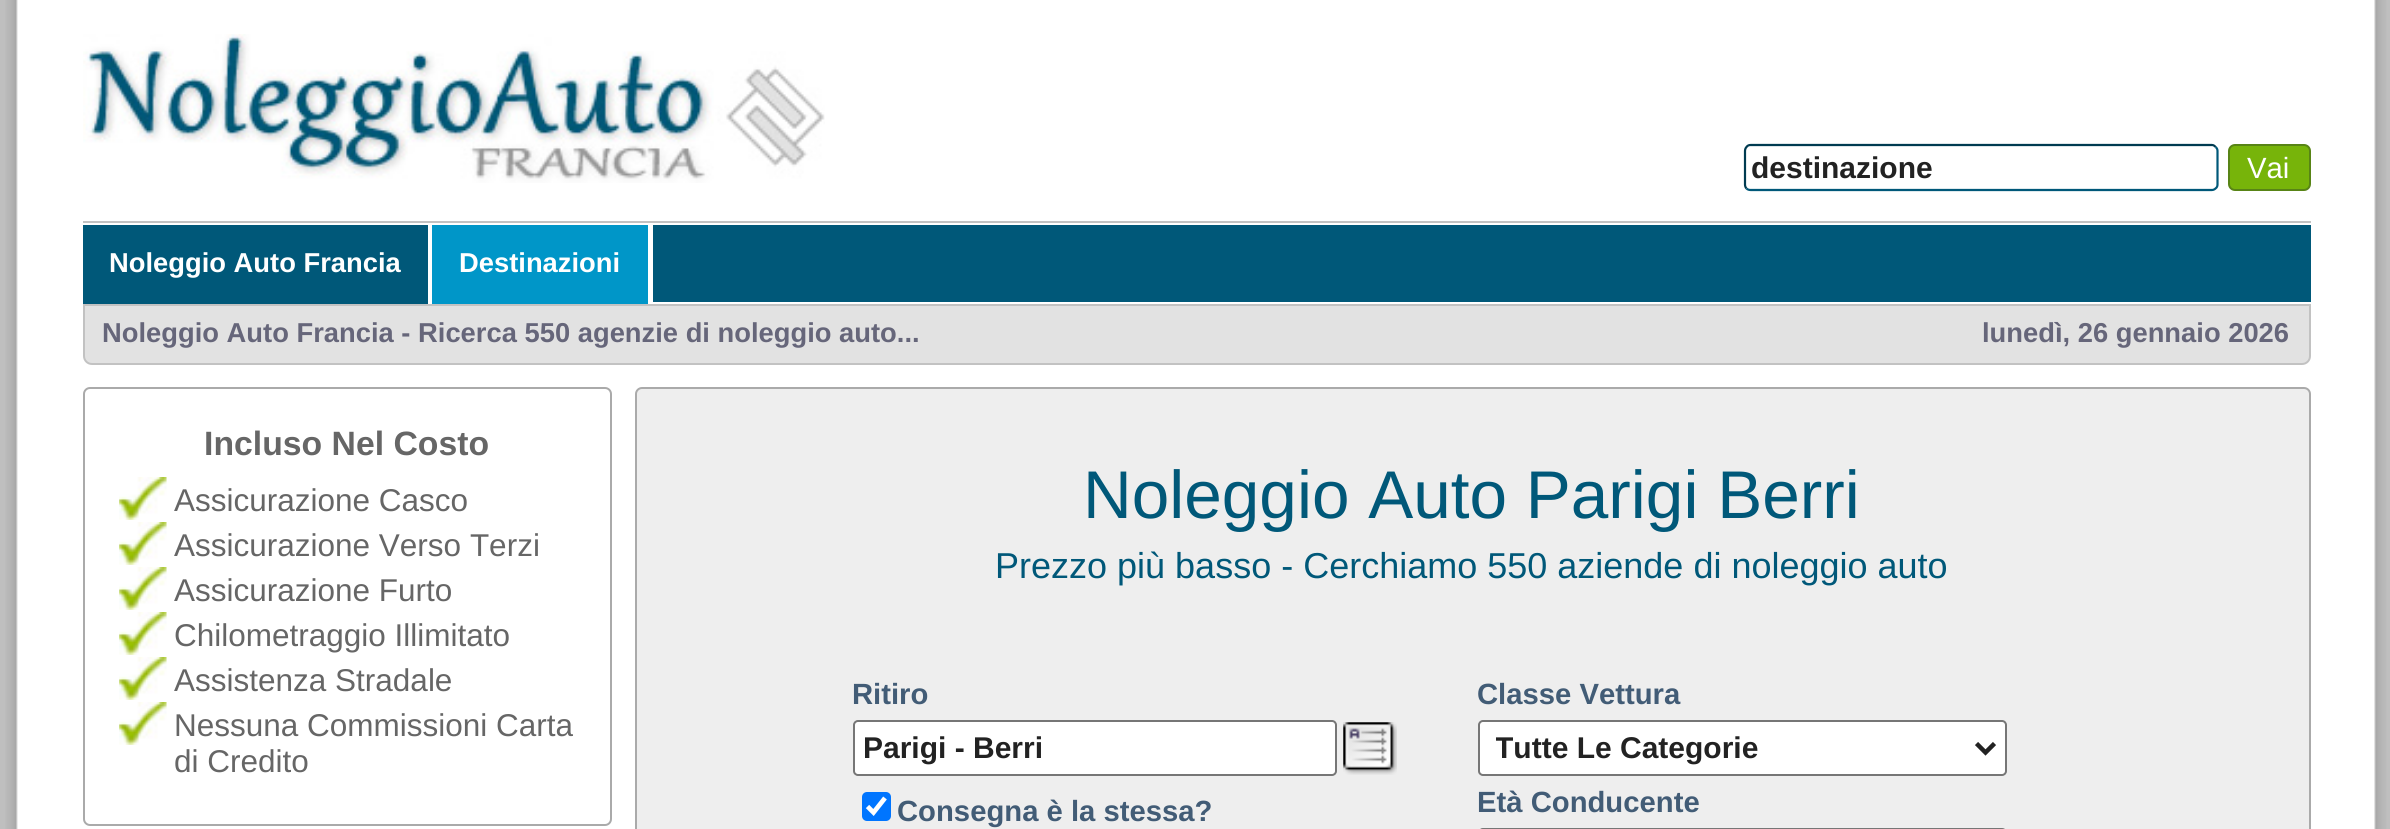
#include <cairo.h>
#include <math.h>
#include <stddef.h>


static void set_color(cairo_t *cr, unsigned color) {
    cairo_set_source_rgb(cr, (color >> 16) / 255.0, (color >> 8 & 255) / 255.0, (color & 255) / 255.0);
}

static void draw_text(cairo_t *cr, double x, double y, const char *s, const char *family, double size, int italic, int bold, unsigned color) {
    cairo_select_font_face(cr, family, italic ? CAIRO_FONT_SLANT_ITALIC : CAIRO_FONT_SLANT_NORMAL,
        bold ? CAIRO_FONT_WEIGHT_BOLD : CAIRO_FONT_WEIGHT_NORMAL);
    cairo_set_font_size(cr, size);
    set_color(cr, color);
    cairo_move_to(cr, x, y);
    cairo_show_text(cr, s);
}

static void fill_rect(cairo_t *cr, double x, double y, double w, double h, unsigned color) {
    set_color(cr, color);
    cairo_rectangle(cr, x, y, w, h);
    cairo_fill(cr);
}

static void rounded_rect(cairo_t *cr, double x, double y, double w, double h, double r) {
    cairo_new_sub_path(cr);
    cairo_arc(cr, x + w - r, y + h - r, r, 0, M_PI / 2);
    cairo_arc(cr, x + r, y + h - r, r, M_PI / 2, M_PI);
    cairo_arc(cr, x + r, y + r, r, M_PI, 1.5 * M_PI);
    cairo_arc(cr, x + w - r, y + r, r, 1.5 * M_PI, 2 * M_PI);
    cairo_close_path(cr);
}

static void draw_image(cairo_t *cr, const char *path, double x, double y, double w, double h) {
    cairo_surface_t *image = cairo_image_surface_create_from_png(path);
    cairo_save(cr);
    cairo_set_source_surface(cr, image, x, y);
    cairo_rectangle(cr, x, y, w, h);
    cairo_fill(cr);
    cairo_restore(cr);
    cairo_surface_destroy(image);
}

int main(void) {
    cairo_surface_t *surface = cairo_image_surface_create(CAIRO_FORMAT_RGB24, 2390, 829);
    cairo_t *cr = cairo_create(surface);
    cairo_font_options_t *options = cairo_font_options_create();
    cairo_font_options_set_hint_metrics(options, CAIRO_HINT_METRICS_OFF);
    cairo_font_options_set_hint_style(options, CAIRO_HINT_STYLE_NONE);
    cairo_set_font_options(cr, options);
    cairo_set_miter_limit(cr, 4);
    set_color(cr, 0xFFFFFF);
    cairo_paint(cr);
    draw_image(cr, "assets/img1.png", 0, 0, 2390, 829);
    draw_image(cr, "assets/img2.png", 83, 34, 742, 149);
    cairo_new_path(cr);
    cairo_move_to(cr, 2215.5, 147);
    cairo_curve_to(cr, 2217, 148, 2217.5, 149.5, 2217.5, 151);
    cairo_line_to(cr, 2217.5, 184.5);
    cairo_curve_to(cr, 2217.5, 186, 2217, 187.5, 2215.5, 188.5);
    cairo_curve_to(cr, 2214.5, 189.5, 2213, 190, 2212, 190);
    cairo_line_to(cr, 1750.5, 190);
    cairo_curve_to(cr, 1749, 190, 1747.5, 189.5, 1746.5, 188.5);
    set_color(cr, 0x005879);
    cairo_set_line_width(cr, 2.2);
    cairo_stroke(cr);
    cairo_new_path(cr);
    cairo_move_to(cr, 1746.5, 188.5);
    cairo_curve_to(cr, 1745.5, 187.5, 1745, 186, 1745, 184.5);
    cairo_line_to(cr, 1745, 151);
    cairo_curve_to(cr, 1745, 149.5, 1745.5, 148, 1746.5, 147);
    cairo_curve_to(cr, 1747.5, 145.5, 1749, 145, 1750.5, 145);
    cairo_line_to(cr, 2212, 145);
    cairo_curve_to(cr, 2213, 145, 2214.5, 145.5, 2215.5, 147);
    set_color(cr, 0x003B51);
    cairo_stroke(cr);
    draw_text(cr, 1751, 178, "destinazione", "Liberation Sans", 30, 0, 1, 0x222222);
    set_color(cr, 0x77B40A);
    rounded_rect(cr, 2229, 145, 81, 45, 6);
    cairo_fill_preserve(cr);
    set_color(cr, 0x588416);
    cairo_set_line_width(cr, 2);
    cairo_stroke(cr);
    draw_text(cr, 2247, 178, "Vai", "Liberation Sans", 29.25, 0, 0, 0xFFFFFF);
    fill_rect(cr, 83, 221, 2228, 2, 0xC2C2C2);
    fill_rect(cr, 653, 225, 1658, 77, 0x005879);
    fill_rect(cr, 83, 225, 345, 79, 0x005879);
    draw_text(cr, 109, 272, "Noleggio Auto Francia", "Liberation Sans", 27.35, 0, 1, 0xFFFFFF);
    fill_rect(cr, 432, 225, 216, 79, 0x0096C8);
    draw_text(cr, 459, 272, "Destinazioni", "Liberation Sans", 27.35, 0, 1, 0xFFFFFF);
    set_color(cr, 0xE2E2E2);
    cairo_new_path(cr);
    cairo_move_to(cr, 84, 305);
    cairo_line_to(cr, 2310, 305);
    cairo_line_to(cr, 2310, 356);
    cairo_curve_to(cr, 2310, 360.5, 2306.5, 364, 2302, 364);
    cairo_line_to(cr, 92, 364);
    cairo_curve_to(cr, 87.5, 364, 84, 360.5, 84, 356);
    cairo_close_path(cr);
    cairo_fill_preserve(cr);
    set_color(cr, 0xC2C2C2);
    cairo_stroke(cr);
    draw_text(cr, 102, 342, "Noleggio Auto Francia - Ricerca 550 agenzie di noleggio auto...", "Liberation Sans", 27.35, 0, 1, 0x66667A);
    draw_text(cr, 1982, 342, "lunedì, 26 gennaio 2026", "Liberation Sans", 27.35, 0, 1, 0x66667A);
    rounded_rect(cr, 84, 388, 527, 437, 6);
    set_color(cr, 0xAAAAAA);
    cairo_stroke(cr);
    draw_text(cr, 204, 455, "Incluso Nel Costo", "Liberation Sans", 33.75, 0, 1, 0x666666);
    draw_image(cr, "assets/img3.png", 119, 477, 48, 43);
    draw_text(cr, 174, 511, "Assicurazione Casco", "Liberation Sans", 31.5, 0, 0, 0x666666);
    draw_image(cr, "assets/img3.png", 119, 522, 48, 43);
    draw_text(cr, 174, 556, "Assicurazione Verso Terzi", "Liberation Sans", 31.5, 0, 0, 0x666666);
    draw_image(cr, "assets/img4.png", 119, 567, 48, 43);
    draw_text(cr, 174, 601, "Assicurazione Furto", "Liberation Sans", 31.5, 0, 0, 0x666666);
    draw_image(cr, "assets/img3.png", 119, 612, 48, 43);
    draw_text(cr, 174, 646, "Chilometraggio Illimitato", "Liberation Sans", 31.5, 0, 0, 0x666666);
    draw_image(cr, "assets/img3.png", 119, 657, 48, 43);
    draw_text(cr, 174, 691, "Assistenza Stradale", "Liberation Sans", 31.5, 0, 0, 0x666666);
    draw_image(cr, "assets/img3.png", 119, 702, 48, 43);
    draw_text(cr, 174, 736, "Nessuna Commissioni Carta", "Liberation Sans", 31.5, 0, 0, 0x666666);
    draw_text(cr, 174, 772, "di Credito", "Liberation Sans", 31.5, 0, 0, 0x666666);
    set_color(cr, 0xEEEEEE);
    rounded_rect(cr, 636, 388, 1674, 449, 6);
    cairo_fill_preserve(cr);
    set_color(cr, 0xAAAAAA);
    cairo_stroke(cr);
    draw_text(cr, 1083, 518, "Noleggio Auto Parigi Berri", "Liberation Sans", 67.5, 0, 0, 0x005879);
    draw_text(cr, 995, 578, "Prezzo più basso - Cerchiamo 550 aziende di noleggio auto", "Liberation Sans", 36, 0, 0, 0x005879);
    draw_text(cr, 852, 704, "Ritiro", "Liberation Sans", 29.25, 0, 1, 0x425C76);
    set_color(cr, 0xFFFFFF);
    rounded_rect(cr, 854, 721, 482, 54, 4);
    cairo_fill_preserve(cr);
    set_color(cr, 0x767676);
    cairo_stroke(cr);
    draw_text(cr, 863, 758, "Parigi - Berri", "Liberation Sans", 30, 0, 1, 0x222222);
    draw_image(cr, "assets/img5.png", 1343, 722, 54, 53);
    set_color(cr, 0x0075FF);
    rounded_rect(cr, 862, 792, 29, 29, 5);
    cairo_fill(cr);
    cairo_new_path(cr);
    cairo_move_to(cr, 867.5, 806.5);
    cairo_line_to(cr, 873.5, 812.5);
    cairo_line_to(cr, 885, 798);
    set_color(cr, 0xFFFFFF);
    cairo_set_line_width(cr, 4.7);
    cairo_stroke(cr);
    draw_text(cr, 897, 821, "Consegna è la stessa?", "Liberation Sans", 29.25, 0, 1, 0x425C76);
    draw_text(cr, 1477, 704, "Classe Vettura", "Liberation Sans", 29.25, 0, 1, 0x425C76);
    set_color(cr, 0xFFFFFF);
    rounded_rect(cr, 1479, 721, 527, 54, 4);
    cairo_fill_preserve(cr);
    set_color(cr, 0x767676);
    cairo_set_line_width(cr, 2);
    cairo_stroke(cr);
    cairo_new_path(cr);
    cairo_move_to(cr, 1976.5, 743.5);
    cairo_line_to(cr, 1985.5, 752.5);
    cairo_line_to(cr, 1994.5, 743.5);
    set_color(cr, 0x222222);
    cairo_set_line_width(cr, 4.5);
    cairo_stroke(cr);
    cairo_save(cr);
    cairo_rectangle(cr, 1496, 729, 466, 38);
    cairo_clip(cr);
    draw_text(cr, 1495, 758, "Tutte Le Categorie", "Liberation Sans", 30, 0, 1, 0x222222);
    cairo_restore(cr);
    draw_text(cr, 1477, 812, "Età Conducente", "Liberation Sans", 29.25, 0, 1, 0x425C76);
    rounded_rect(cr, 1479, 829, 527, 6, 4);
    set_color(cr, 0x767676);
    cairo_set_line_width(cr, 2);
    cairo_stroke(cr);
    cairo_surface_write_to_png(surface, "output.png");
    cairo_font_options_destroy(options);
    cairo_destroy(cr);
    cairo_surface_destroy(surface);
    return 0;
}
